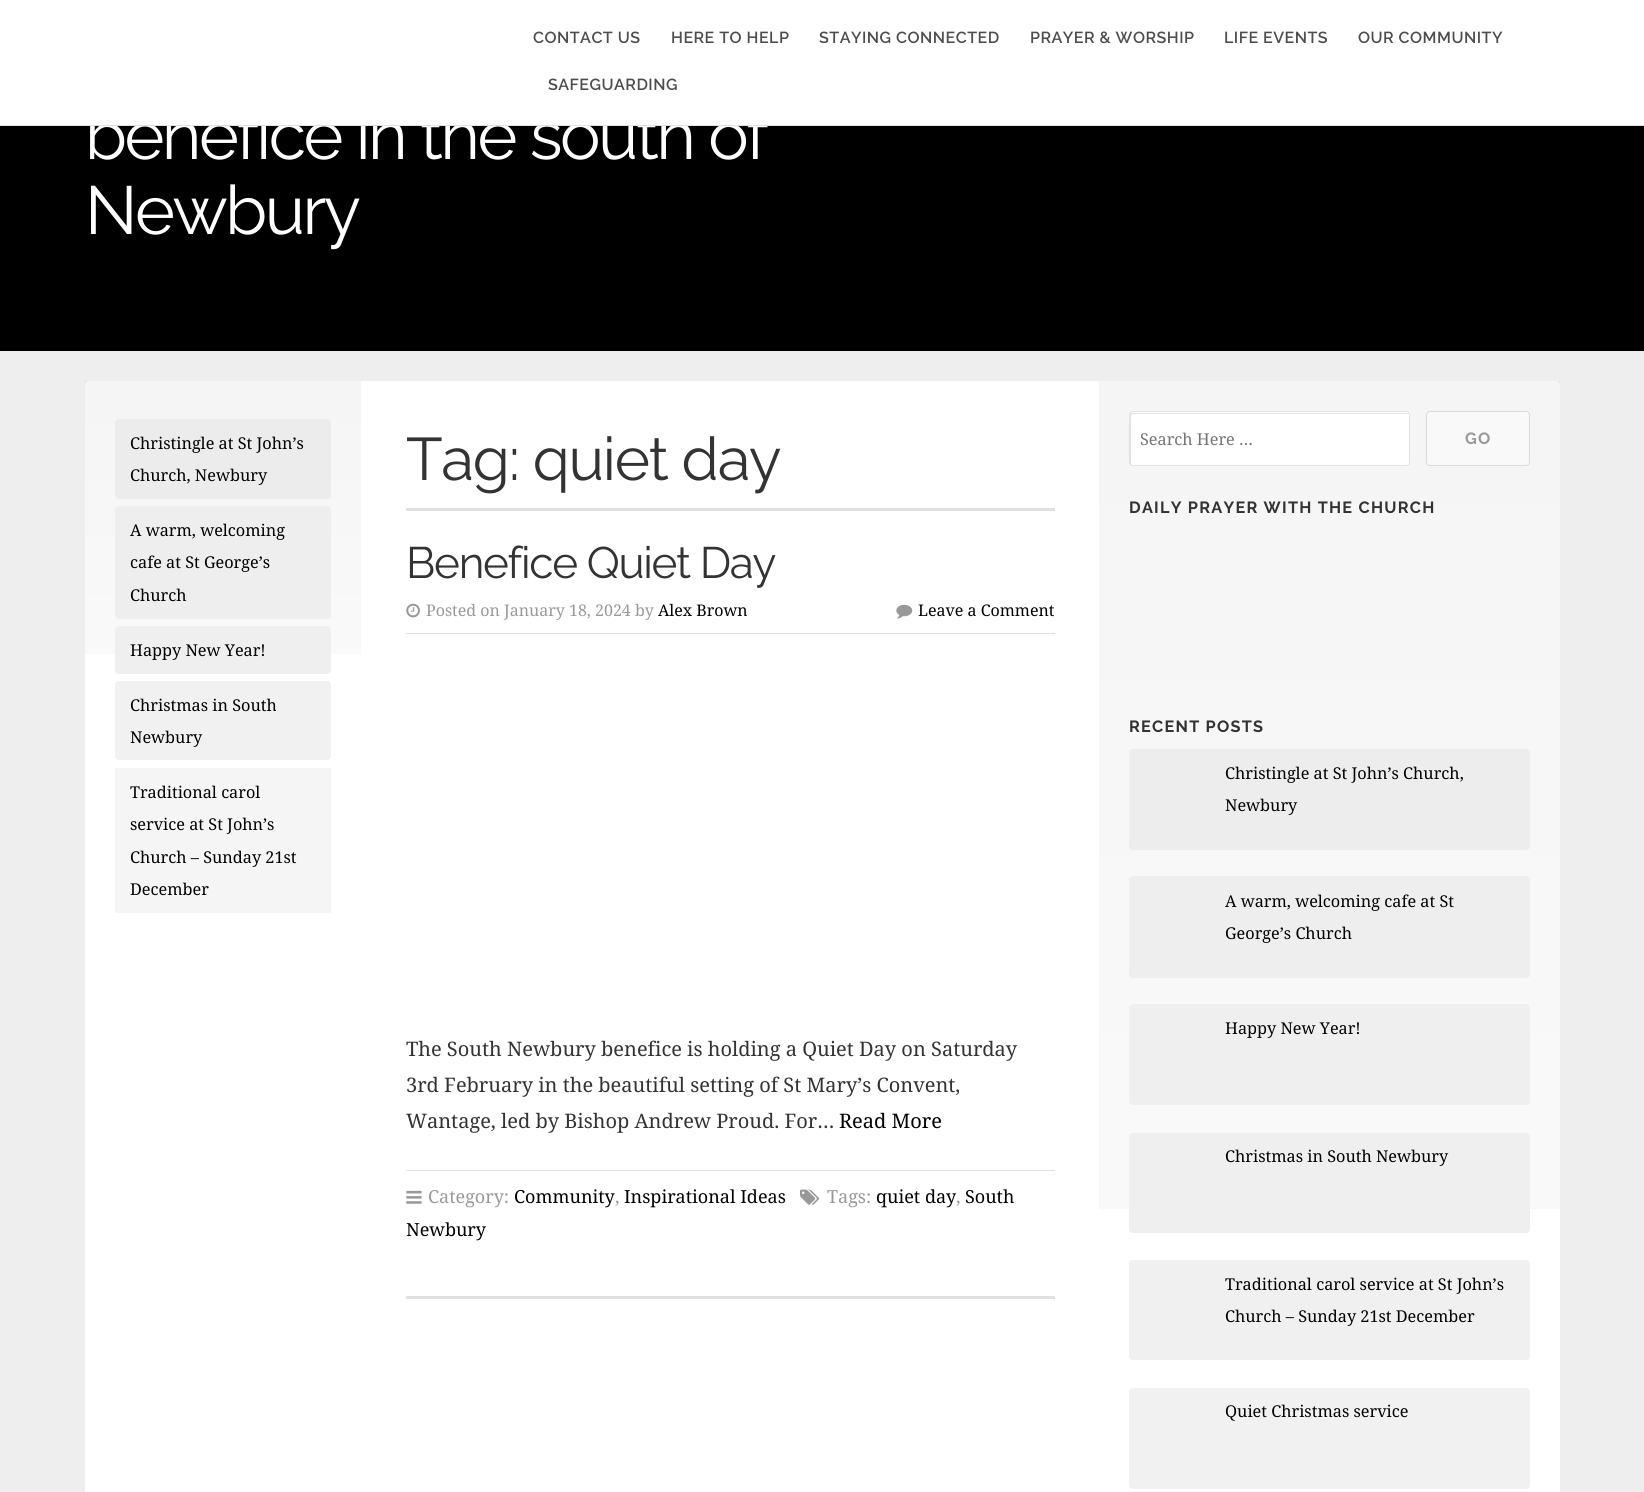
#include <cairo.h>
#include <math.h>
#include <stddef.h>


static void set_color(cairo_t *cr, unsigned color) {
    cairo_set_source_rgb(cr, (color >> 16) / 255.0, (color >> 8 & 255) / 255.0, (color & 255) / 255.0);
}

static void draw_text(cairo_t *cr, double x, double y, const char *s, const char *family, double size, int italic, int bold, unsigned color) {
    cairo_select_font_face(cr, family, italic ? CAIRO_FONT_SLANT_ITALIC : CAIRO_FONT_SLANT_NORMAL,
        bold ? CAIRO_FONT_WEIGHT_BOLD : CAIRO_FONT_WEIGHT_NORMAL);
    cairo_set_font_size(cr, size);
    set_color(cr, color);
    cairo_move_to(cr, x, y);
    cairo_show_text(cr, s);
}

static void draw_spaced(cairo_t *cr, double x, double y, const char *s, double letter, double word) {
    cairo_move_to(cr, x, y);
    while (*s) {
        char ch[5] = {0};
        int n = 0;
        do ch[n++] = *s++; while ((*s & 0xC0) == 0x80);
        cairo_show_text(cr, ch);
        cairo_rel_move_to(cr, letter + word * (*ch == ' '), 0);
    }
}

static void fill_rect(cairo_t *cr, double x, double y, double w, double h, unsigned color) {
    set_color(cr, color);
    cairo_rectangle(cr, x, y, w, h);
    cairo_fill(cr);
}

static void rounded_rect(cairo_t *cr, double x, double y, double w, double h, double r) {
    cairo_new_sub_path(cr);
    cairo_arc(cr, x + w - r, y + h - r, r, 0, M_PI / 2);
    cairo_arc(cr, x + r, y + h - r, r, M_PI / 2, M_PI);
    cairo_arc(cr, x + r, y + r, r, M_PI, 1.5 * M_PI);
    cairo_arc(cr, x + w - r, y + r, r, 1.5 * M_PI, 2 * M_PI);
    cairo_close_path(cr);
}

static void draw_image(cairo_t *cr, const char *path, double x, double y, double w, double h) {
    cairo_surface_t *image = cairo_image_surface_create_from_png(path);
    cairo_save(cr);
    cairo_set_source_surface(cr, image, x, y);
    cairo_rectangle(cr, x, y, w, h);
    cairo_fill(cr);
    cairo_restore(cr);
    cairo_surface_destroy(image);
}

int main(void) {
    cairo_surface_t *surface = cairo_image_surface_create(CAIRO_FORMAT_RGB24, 1644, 1492);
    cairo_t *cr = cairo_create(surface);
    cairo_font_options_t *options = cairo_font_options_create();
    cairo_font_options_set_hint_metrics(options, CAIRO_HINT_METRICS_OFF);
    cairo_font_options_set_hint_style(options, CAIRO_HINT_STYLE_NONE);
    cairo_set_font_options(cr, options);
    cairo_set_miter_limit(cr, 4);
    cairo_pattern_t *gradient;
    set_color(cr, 0xEEEEEE);
    cairo_paint(cr);
    fill_rect(cr, 0, 0, 1644, 125, 0xFFFFFF);
    fill_rect(cr, 0, 126, 1644, 225, 0x000000);
    cairo_select_font_face(cr, "Raleway", CAIRO_FONT_SLANT_NORMAL, CAIRO_FONT_WEIGHT_NORMAL);
    cairo_set_font_size(cr, 68);
    set_color(cr, 0xFFFFFF);
    draw_spaced(cr, 85, 159, "benefice in the south of", -2.5, 0);
    fill_rect(cr, 0, 125, 1644, 1, 0xE0E0E0);
    cairo_select_font_face(cr, "Raleway SemiBold", CAIRO_FONT_SLANT_NORMAL, CAIRO_FONT_WEIGHT_NORMAL);
    cairo_set_font_size(cr, 16);
    set_color(cr, 0x4D4D4D);
    draw_spaced(cr, 533, 43, "CONTACT US", 0.5, 0);
    draw_spaced(cr, 671, 43, "HERE TO HELP", 0.5, 0);
    draw_spaced(cr, 819, 43, "STAYING CONNECTED", 0.5, 0);
    draw_spaced(cr, 1030, 43, "PRAYER & WORSHIP", 0.5, 0);
    draw_spaced(cr, 1224, 43, "LIFE EVENTS", 0.5, 0);
    draw_spaced(cr, 1358, 43, "OUR COMMUNITY", 0.5, 0);
    draw_spaced(cr, 548, 90, "SAFEGUARDING", 0.5, 0);
    cairo_select_font_face(cr, "Raleway", CAIRO_FONT_SLANT_NORMAL, CAIRO_FONT_WEIGHT_NORMAL);
    cairo_set_font_size(cr, 68);
    set_color(cr, 0xFFFFFF);
    draw_spaced(cr, 85, 234, "Newbury", -2.5, 0);
    rounded_rect(cr, 85, 381, 1475, 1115, 4);
    cairo_fill(cr);
    gradient = cairo_pattern_create_linear(223, 973, 223, 381);
    cairo_pattern_add_color_stop_rgba(gradient, 0, 0, 0, 0, 0);
    cairo_pattern_add_color_stop_rgba(gradient, 1, 0, 0, 0, 0.04);
    cairo_set_source(cr, gradient);
    cairo_pattern_destroy(gradient);
    cairo_rectangle(cr, 85, 381, 276, 273);
    cairo_fill(cr);
    set_color(cr, 0xECECEC);
    rounded_rect(cr, 115, 419, 216, 80, 4);
    cairo_fill(cr);
    draw_text(cr, 130, 449, "Christingle at St John’s", "Noto Serif", 16.25, 0, 0, 0x000000);
    draw_text(cr, 130, 481, "Church, Newbury", "Noto Serif", 16.25, 0, 0, 0x000000);
    set_color(cr, 0xEEEEEE);
    rounded_rect(cr, 115, 506, 216, 113, 4);
    cairo_fill(cr);
    draw_text(cr, 130, 536, "A warm, welcoming", "Noto Serif", 16.25, 0, 0, 0x000000);
    draw_text(cr, 130, 568, "cafe at St George’s", "Noto Serif", 16.25, 0, 0, 0x000000);
    draw_text(cr, 130, 601, "Church", "Noto Serif", 16.25, 0, 0, 0x000000);
    set_color(cr, 0xEFEFEF);
    rounded_rect(cr, 115, 626, 216, 48, 4);
    cairo_fill(cr);
    draw_text(cr, 130, 656, "Happy New Year!", "Noto Serif", 16.25, 0, 0, 0x000000);
    set_color(cr, 0xF1F1F1);
    rounded_rect(cr, 115, 681, 216, 79, 4);
    cairo_fill(cr);
    draw_text(cr, 130, 711, "Christmas in South", "Noto Serif", 16.25, 0, 0, 0x000000);
    draw_text(cr, 130, 743, "Newbury", "Noto Serif", 16.25, 0, 0, 0x000000);
    cairo_set_source_rgba(cr, 0, 0, 0, 0.04);
    cairo_rectangle(cr, 115, 768, 216, 145);
    cairo_fill(cr);
    draw_text(cr, 130, 798, "Traditional carol", "Noto Serif", 16.25, 0, 0, 0x000000);
    draw_text(cr, 130, 830, "service at St John’s", "Noto Serif", 16.25, 0, 0, 0x000000);
    draw_text(cr, 130, 863, "Church – Sunday 21st", "Noto Serif", 16.25, 0, 0, 0x000000);
    draw_text(cr, 130, 895, "December", "Noto Serif", 16.25, 0, 0, 0x000000);
    fill_rect(cr, 406, 508, 649, 3, 0xE0E0E0);
    cairo_select_font_face(cr, "Raleway", CAIRO_FONT_SLANT_NORMAL, CAIRO_FONT_WEIGHT_NORMAL);
    cairo_set_font_size(cr, 60);
    set_color(cr, 0x333333);
    draw_spaced(cr, 406, 480, "Tag: quiet day", -1.25, 0);
    fill_rect(cr, 406, 1296, 649, 3, 0xE0E0E0);
    cairo_set_font_size(cr, 44);
    set_color(cr, 0x333333);
    draw_spaced(cr, 406, 578, "Benefice Quiet Day", -1.25, 0);
    fill_rect(cr, 406, 633, 649, 1, 0xE0E0E0);
    draw_image(cr, "assets/img1.png", 406, 603, 14, 15);
    draw_text(cr, 426, 616, "Posted on January 18, 2024 by", "Noto Serif", 16, 0, 0, 0x999999);
    draw_text(cr, 658, 616, "Alex Brown", "Noto Serif", 16, 0, 0, 0x000000);
    draw_image(cr, "assets/img2.png", 896, 604, 17, 15);
    draw_text(cr, 918, 616, "Leave a Comment", "Noto Serif", 16, 0, 0, 0x000000);
    draw_text(cr, 406, 1056, "The South Newbury benefice is holding a Quiet Day on Saturday", "Noto Serif", 20, 0, 0, 0x333333);
    draw_text(cr, 406, 1092, "3rd February in the beautiful setting of St Mary’s Convent,", "Noto Serif", 20, 0, 0, 0x333333);
    draw_text(cr, 406, 1128, "Wantage, led by Bishop Andrew Proud. For…", "Noto Serif", 20, 0, 0, 0x333333);
    draw_text(cr, 839, 1128, "Read More", "Noto Serif", 20, 0, 0, 0x000000);
    fill_rect(cr, 406, 1170, 649, 1, 0xE0E0E0);
    draw_image(cr, "assets/img3.png", 406, 1190, 16, 14);
    draw_text(cr, 428, 1203, "Category:", "Noto Serif", 18, 0, 0, 0x999999);
    draw_text(cr, 514, 1203, "Community", "Noto Serif", 18, 0, 0, 0x000000);
    draw_text(cr, 615, 1203, ",", "Noto Serif", 18, 0, 0, 0x999999);
    draw_text(cr, 624, 1203, "Inspirational Ideas", "Noto Serif", 18, 0, 0, 0x000000);
    draw_image(cr, "assets/img4.png", 800, 1189, 19, 16);
    draw_text(cr, 827, 1203, "Tags:", "Noto Serif", 18, 0, 0, 0x999999);
    draw_text(cr, 876, 1203, "quiet day", "Noto Serif", 18, 0, 0, 0x000000);
    draw_text(cr, 956, 1203, ",", "Noto Serif", 18, 0, 0, 0x999999);
    draw_text(cr, 965, 1203, "South", "Noto Serif", 18, 0, 0, 0x000000);
    draw_text(cr, 406, 1236, "Newbury", "Noto Serif", 18, 0, 0, 0x000000);
    gradient = cairo_pattern_create_linear(1329, 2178, 1329, 381);
    cairo_pattern_add_color_stop_rgba(gradient, 0, 0, 0, 0, 0);
    cairo_pattern_add_color_stop_rgba(gradient, 1, 0, 0, 0, 0.04);
    cairo_set_source(cr, gradient);
    cairo_pattern_destroy(gradient);
    cairo_rectangle(cr, 1099, 381, 461, 828);
    cairo_fill(cr);
    set_color(cr, 0xFFFFFF);
    rounded_rect(cr, 1129, 411, 281, 55, 4);
    cairo_fill(cr);
    set_color(cr, 0xE0E0E0);
    cairo_new_path(cr);
    cairo_move_to(cr, 1134, 414);
    cairo_line_to(cr, 1409, 414);
    cairo_curve_to(cr, 1408, 413, 1407, 413, 1406, 413);
    cairo_line_to(cr, 1132, 413);
    cairo_curve_to(cr, 1131, 413, 1130, 414, 1130, 416);
    cairo_line_to(cr, 1130, 462);
    cairo_curve_to(cr, 1130, 463, 1130, 464, 1131, 465);
    cairo_line_to(cr, 1131, 424);
    cairo_curve_to(cr, 1131, 421, 1129, 414, 1134, 414);
    cairo_close_path(cr);
    cairo_fill(cr);
    rounded_rect(cr, 1129.5, 411.5, 280, 54, 3.5);
    cairo_set_source_rgba(cr, 0, 0, 0, 0.12);
    cairo_set_line_width(cr, 1);
    cairo_stroke(cr);
    draw_text(cr, 1140, 445, "Search Here …", "Noto Serif", 16.25, 0, 0, 0x757575);
    set_color(cr, 0xF9F9F9);
    rounded_rect(cr, 1426.5, 411.5, 103, 54, 3.5);
    cairo_fill_preserve(cr);
    set_color(cr, 0xDBDBDB);
    cairo_stroke(cr);
    cairo_select_font_face(cr, "Raleway", CAIRO_FONT_SLANT_NORMAL, CAIRO_FONT_WEIGHT_BOLD);
    set_color(cr, 0x999999);
    draw_spaced(cr, 1465, 444, "GO", 1.25, 0);
    set_color(cr, 0x333333);
    draw_spaced(cr, 1129, 513, "DAILY PRAYER WITH THE CHURCH", 1.25, 0);
    draw_spaced(cr, 1129, 732, "RECENT POSTS", 1.25, 0);
    set_color(cr, 0xEDEDED);
    rounded_rect(cr, 1129, 749, 401, 101, 4);
    cairo_fill(cr);
    draw_text(cr, 1225, 779, "Christingle at St John’s Church,", "Noto Serif", 16.25, 0, 0, 0x000000);
    draw_text(cr, 1225, 811, "Newbury", "Noto Serif", 16.25, 0, 0, 0x000000);
    set_color(cr, 0xEEEEEE);
    rounded_rect(cr, 1129, 876, 401, 102, 4);
    cairo_fill(cr);
    draw_text(cr, 1225, 907, "A warm, welcoming cafe at St", "Noto Serif", 16.25, 0, 0, 0x000000);
    draw_text(cr, 1225, 939, "George’s Church", "Noto Serif", 16.25, 0, 0, 0x000000);
    set_color(cr, 0xEFEFEF);
    rounded_rect(cr, 1129, 1004, 401, 101, 4);
    cairo_fill(cr);
    draw_text(cr, 1225, 1034, "Happy New Year!", "Noto Serif", 16.25, 0, 0, 0x000000);
    set_color(cr, 0xEFEFEF);
    rounded_rect(cr, 1129, 1133, 401, 100, 4);
    cairo_fill(cr);
    draw_text(cr, 1225, 1162, "Christmas in South Newbury", "Noto Serif", 16.25, 0, 0, 0x000000);
    set_color(cr, 0xF0F0F0);
    rounded_rect(cr, 1129, 1260, 401, 100, 4);
    cairo_fill(cr);
    draw_text(cr, 1225, 1290, "Traditional carol service at St John’s", "Noto Serif", 16.25, 0, 0, 0x000000);
    draw_text(cr, 1225, 1322, "Church – Sunday 21st December", "Noto Serif", 16.25, 0, 0, 0x000000);
    set_color(cr, 0xF1F1F1);
    rounded_rect(cr, 1129, 1388, 401, 101, 4);
    cairo_fill(cr);
    draw_text(cr, 1225, 1417, "Quiet Christmas service", "Noto Serif", 16.25, 0, 0, 0x000000);
    cairo_surface_write_to_png(surface, "output.png");
    cairo_font_options_destroy(options);
    cairo_destroy(cr);
    cairo_surface_destroy(surface);
    return 0;
}
